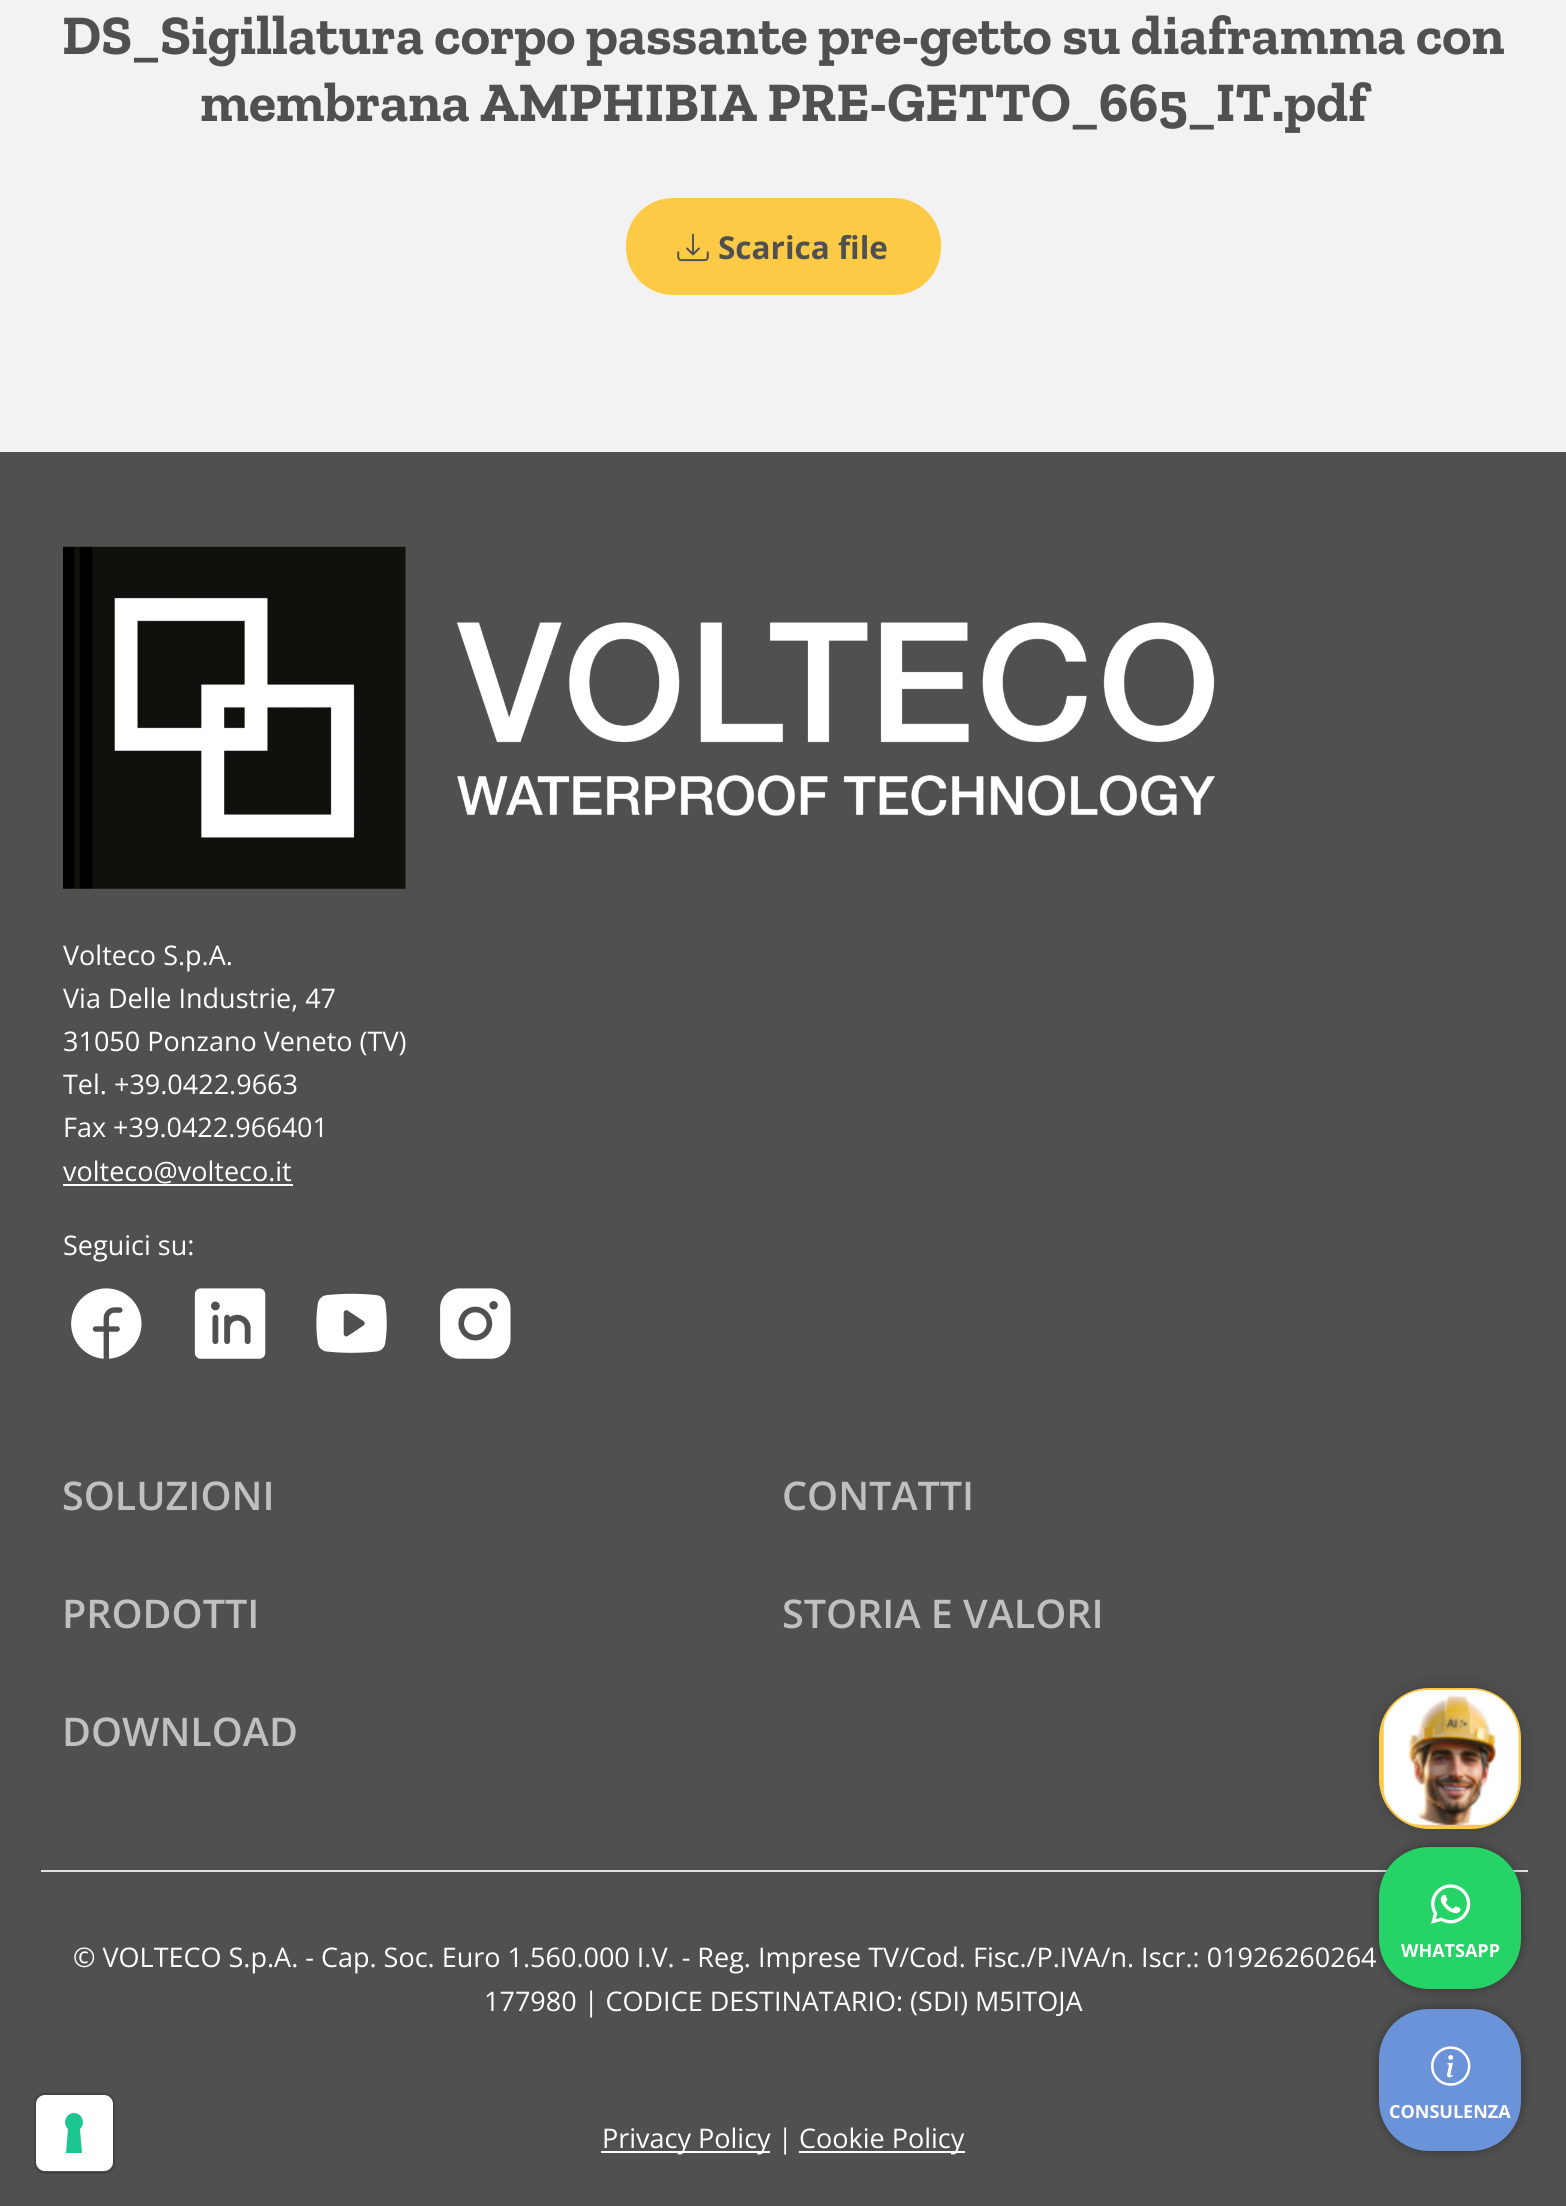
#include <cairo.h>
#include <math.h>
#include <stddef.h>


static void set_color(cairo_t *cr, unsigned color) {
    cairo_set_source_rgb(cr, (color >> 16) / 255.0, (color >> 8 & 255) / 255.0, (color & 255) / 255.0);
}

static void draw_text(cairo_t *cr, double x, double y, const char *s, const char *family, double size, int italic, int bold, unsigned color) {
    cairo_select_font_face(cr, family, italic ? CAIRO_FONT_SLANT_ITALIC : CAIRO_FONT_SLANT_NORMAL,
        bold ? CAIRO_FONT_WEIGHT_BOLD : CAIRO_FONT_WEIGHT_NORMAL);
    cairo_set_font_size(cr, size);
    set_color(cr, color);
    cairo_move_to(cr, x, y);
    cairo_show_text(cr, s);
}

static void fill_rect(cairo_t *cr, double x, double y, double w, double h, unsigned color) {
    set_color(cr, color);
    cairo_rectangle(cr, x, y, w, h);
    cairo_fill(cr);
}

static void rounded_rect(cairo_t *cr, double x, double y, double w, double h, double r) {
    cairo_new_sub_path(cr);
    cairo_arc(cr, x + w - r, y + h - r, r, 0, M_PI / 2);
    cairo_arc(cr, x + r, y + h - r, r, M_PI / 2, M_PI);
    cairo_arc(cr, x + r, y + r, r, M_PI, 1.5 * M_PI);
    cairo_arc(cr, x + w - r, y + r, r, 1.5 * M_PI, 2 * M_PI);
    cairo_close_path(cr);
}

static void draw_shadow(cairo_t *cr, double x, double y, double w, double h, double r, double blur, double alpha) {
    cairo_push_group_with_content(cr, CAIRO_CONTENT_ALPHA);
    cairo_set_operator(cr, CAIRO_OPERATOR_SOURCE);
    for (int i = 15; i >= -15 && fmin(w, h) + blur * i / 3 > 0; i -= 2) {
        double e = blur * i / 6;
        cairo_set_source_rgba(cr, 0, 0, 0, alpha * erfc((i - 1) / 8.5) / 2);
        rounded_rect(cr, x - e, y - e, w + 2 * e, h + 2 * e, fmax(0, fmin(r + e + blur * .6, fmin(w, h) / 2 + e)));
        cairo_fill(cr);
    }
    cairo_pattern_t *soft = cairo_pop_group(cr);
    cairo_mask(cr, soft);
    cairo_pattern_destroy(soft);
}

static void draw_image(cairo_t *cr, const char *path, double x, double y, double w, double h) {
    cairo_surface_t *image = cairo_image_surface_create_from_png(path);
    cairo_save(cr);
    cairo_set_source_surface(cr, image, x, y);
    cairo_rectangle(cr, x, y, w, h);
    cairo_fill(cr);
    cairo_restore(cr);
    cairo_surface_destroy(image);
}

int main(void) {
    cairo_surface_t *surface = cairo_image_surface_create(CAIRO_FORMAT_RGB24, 1566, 2206);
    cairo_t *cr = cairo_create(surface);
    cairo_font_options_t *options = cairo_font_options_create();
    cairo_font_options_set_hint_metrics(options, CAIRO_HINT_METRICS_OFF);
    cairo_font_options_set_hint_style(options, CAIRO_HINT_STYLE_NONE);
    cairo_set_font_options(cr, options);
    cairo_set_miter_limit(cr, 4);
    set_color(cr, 0xF2F2F2);
    cairo_paint(cr);
    draw_text(cr, 62, 54, "DS_Sigillatura corpo passante pre-getto su diaframma con", "Zilla Slab", 55.8, 0, 1, 0x505050);
    draw_text(cr, 200, 121, "membrana AMPHIBIA PRE-GETTO_665_IT.pdf", "Zilla Slab", 55.8, 0, 1, 0x505050);
    set_color(cr, 0xFDCA46);
    rounded_rect(cr, 626, 198, 315, 97, 47);
    cairo_fill(cr);
    draw_image(cr, "assets/img1.png", 677, 233, 32, 29);
    draw_text(cr, 718, 259, "Scarica file", "Open Sans", 31.5, 0, 1, 0x505050);
    fill_rect(cr, 0, 452, 1566, 1754, 0x505050);
    draw_image(cr, "assets/img2.png", 63, 546, 1152, 343);
    draw_text(cr, 63, 965, "Volteco S.p.A.", "Open Sans", 27, 0, 0, 0xFFFFFF);
    draw_text(cr, 63, 1008, "Via Delle Industrie, 47", "Open Sans", 27, 0, 0, 0xFFFFFF);
    draw_text(cr, 63, 1051, "31050 Ponzano Veneto (TV)", "Open Sans", 27, 0, 0, 0xFFFFFF);
    draw_text(cr, 63, 1094, "Tel. +39.0422.9663", "Open Sans", 27, 0, 0, 0xFFFFFF);
    draw_text(cr, 63, 1137, "Fax +39.0422.966401", "Open Sans", 27, 0, 0, 0xFFFFFF);
    draw_text(cr, 63, 1181, "volteco@volteco.it", "Open Sans", 27, 0, 0, 0xFFFFFF);
    fill_rect(cr, 63, 1184, 230, 2, 0xFFFFFF);
    draw_text(cr, 63, 1255, "Seguici su:", "Open Sans", 27, 0, 0, 0xFFFFFF);
    draw_image(cr, "assets/img3.png", 71, 1288, 71, 71);
    draw_image(cr, "assets/img4.png", 194, 1288, 72, 71);
    draw_image(cr, "assets/img5.png", 316, 1293, 71, 60);
    draw_image(cr, "assets/img6.png", 440, 1288, 71, 71);
    draw_text(cr, 62, 1510, "SOLUZIONI", "Open Sans SemiBold", 39.5, 0, 0, 0xC0C0C0);
    draw_text(cr, 782, 1510, "CONTATTI", "Open Sans SemiBold", 39.5, 0, 0, 0xC0C0C0);
    draw_text(cr, 62, 1628, "PRODOTTI", "Open Sans SemiBold", 39.5, 0, 0, 0xC0C0C0);
    draw_text(cr, 782, 1628, "STORIA E VALORI", "Open Sans SemiBold", 39.5, 0, 0, 0xC0C0C0);
    draw_text(cr, 62, 1746, "DOWNLOAD", "Open Sans SemiBold", 39.5, 0, 0, 0xC0C0C0);
    fill_rect(cr, 41, 1870, 1487, 2, 0xDEE2E6);
    draw_text(cr, 73, 1967, "© VOLTECO S.p.A. - Cap. Soc. Euro 1.560.000 I.V. - Reg. Imprese TV/Cod. Fisc./P.IVA/n. Iscr.: 01926260264", "Open Sans", 27, 0, 0, 0xFFFFFF);
    draw_text(cr, 484, 2011, "177980 | CODICE DESTINATARIO: (SDI) M5ITOJA", "Open Sans", 27, 0, 0, 0xFFFFFF);
    fill_rect(cr, 601, 2151, 169, 2, 0xFFFFFF);
    draw_text(cr, 602, 2148, "Privacy Policy |", "Open Sans", 27, 0, 0, 0xFFFFFF);
    fill_rect(cr, 799, 2151, 166, 2, 0xFFFFFF);
    draw_text(cr, 799, 2148, "Cookie Policy", "Open Sans", 27, 0, 0, 0xFFFFFF);
    set_color(cr, 0x000000);
    draw_shadow(cr, 1379, 1688, 142, 141, 50, 11, 0.2);
    set_color(cr, 0xFDCA46);
    rounded_rect(cr, 1379, 1688, 142, 141, 50);
    cairo_fill(cr);
    draw_image(cr, "assets/img7.png", 1383, 1689, 136, 136);
    set_color(cr, 0x000000);
    draw_shadow(cr, 1379, 1847, 142, 142, 50, 5.5, 0.4);
    set_color(cr, 0x25D366);
    rounded_rect(cr, 1379, 1847, 142, 142, 50);
    cairo_fill(cr);
    draw_image(cr, "assets/img8.png", 1431, 1884, 40, 40);
    draw_text(cr, 1401, 1957, "WHATSAPP", "Open Sans", 18, 0, 1, 0xFFFFFF);
    set_color(cr, 0x000000);
    draw_shadow(cr, 1379, 2009, 142, 142, 50, 5.5, 0.4);
    set_color(cr, 0x6A93DA);
    rounded_rect(cr, 1379, 2009, 142, 142, 50);
    cairo_fill(cr);
    draw_image(cr, "assets/img9.png", 1431, 2046, 40, 40);
    draw_text(cr, 1389, 2118, "CONSULENZA", "Open Sans", 18, 0, 1, 0xFFFFFF);
    rounded_rect(cr, 35, 2094, 79, 79, 10);
    set_color(cr, 0x444444);
    cairo_stroke(cr);
    set_color(cr, 0xFFFFFF);
    rounded_rect(cr, 36, 2095, 77, 76, 9);
    cairo_fill(cr);
    set_color(cr, 0x1CC691);
    cairo_set_fill_rule(cr, CAIRO_FILL_RULE_EVEN_ODD);
    cairo_new_path(cr);
    cairo_move_to(cr, 74, 2113);
    cairo_curve_to(cr, 82, 2113, 86, 2123, 80, 2129);
    cairo_line_to(cr, 82, 2153);
    cairo_line_to(cr, 66, 2153);
    cairo_line_to(cr, 68, 2129);
    cairo_curve_to(cr, 62, 2123, 66, 2113, 74, 2113);
    cairo_close_path(cr);
    cairo_fill(cr);
    cairo_surface_write_to_png(surface, "output.png");
    cairo_font_options_destroy(options);
    cairo_destroy(cr);
    cairo_surface_destroy(surface);
    return 0;
}
